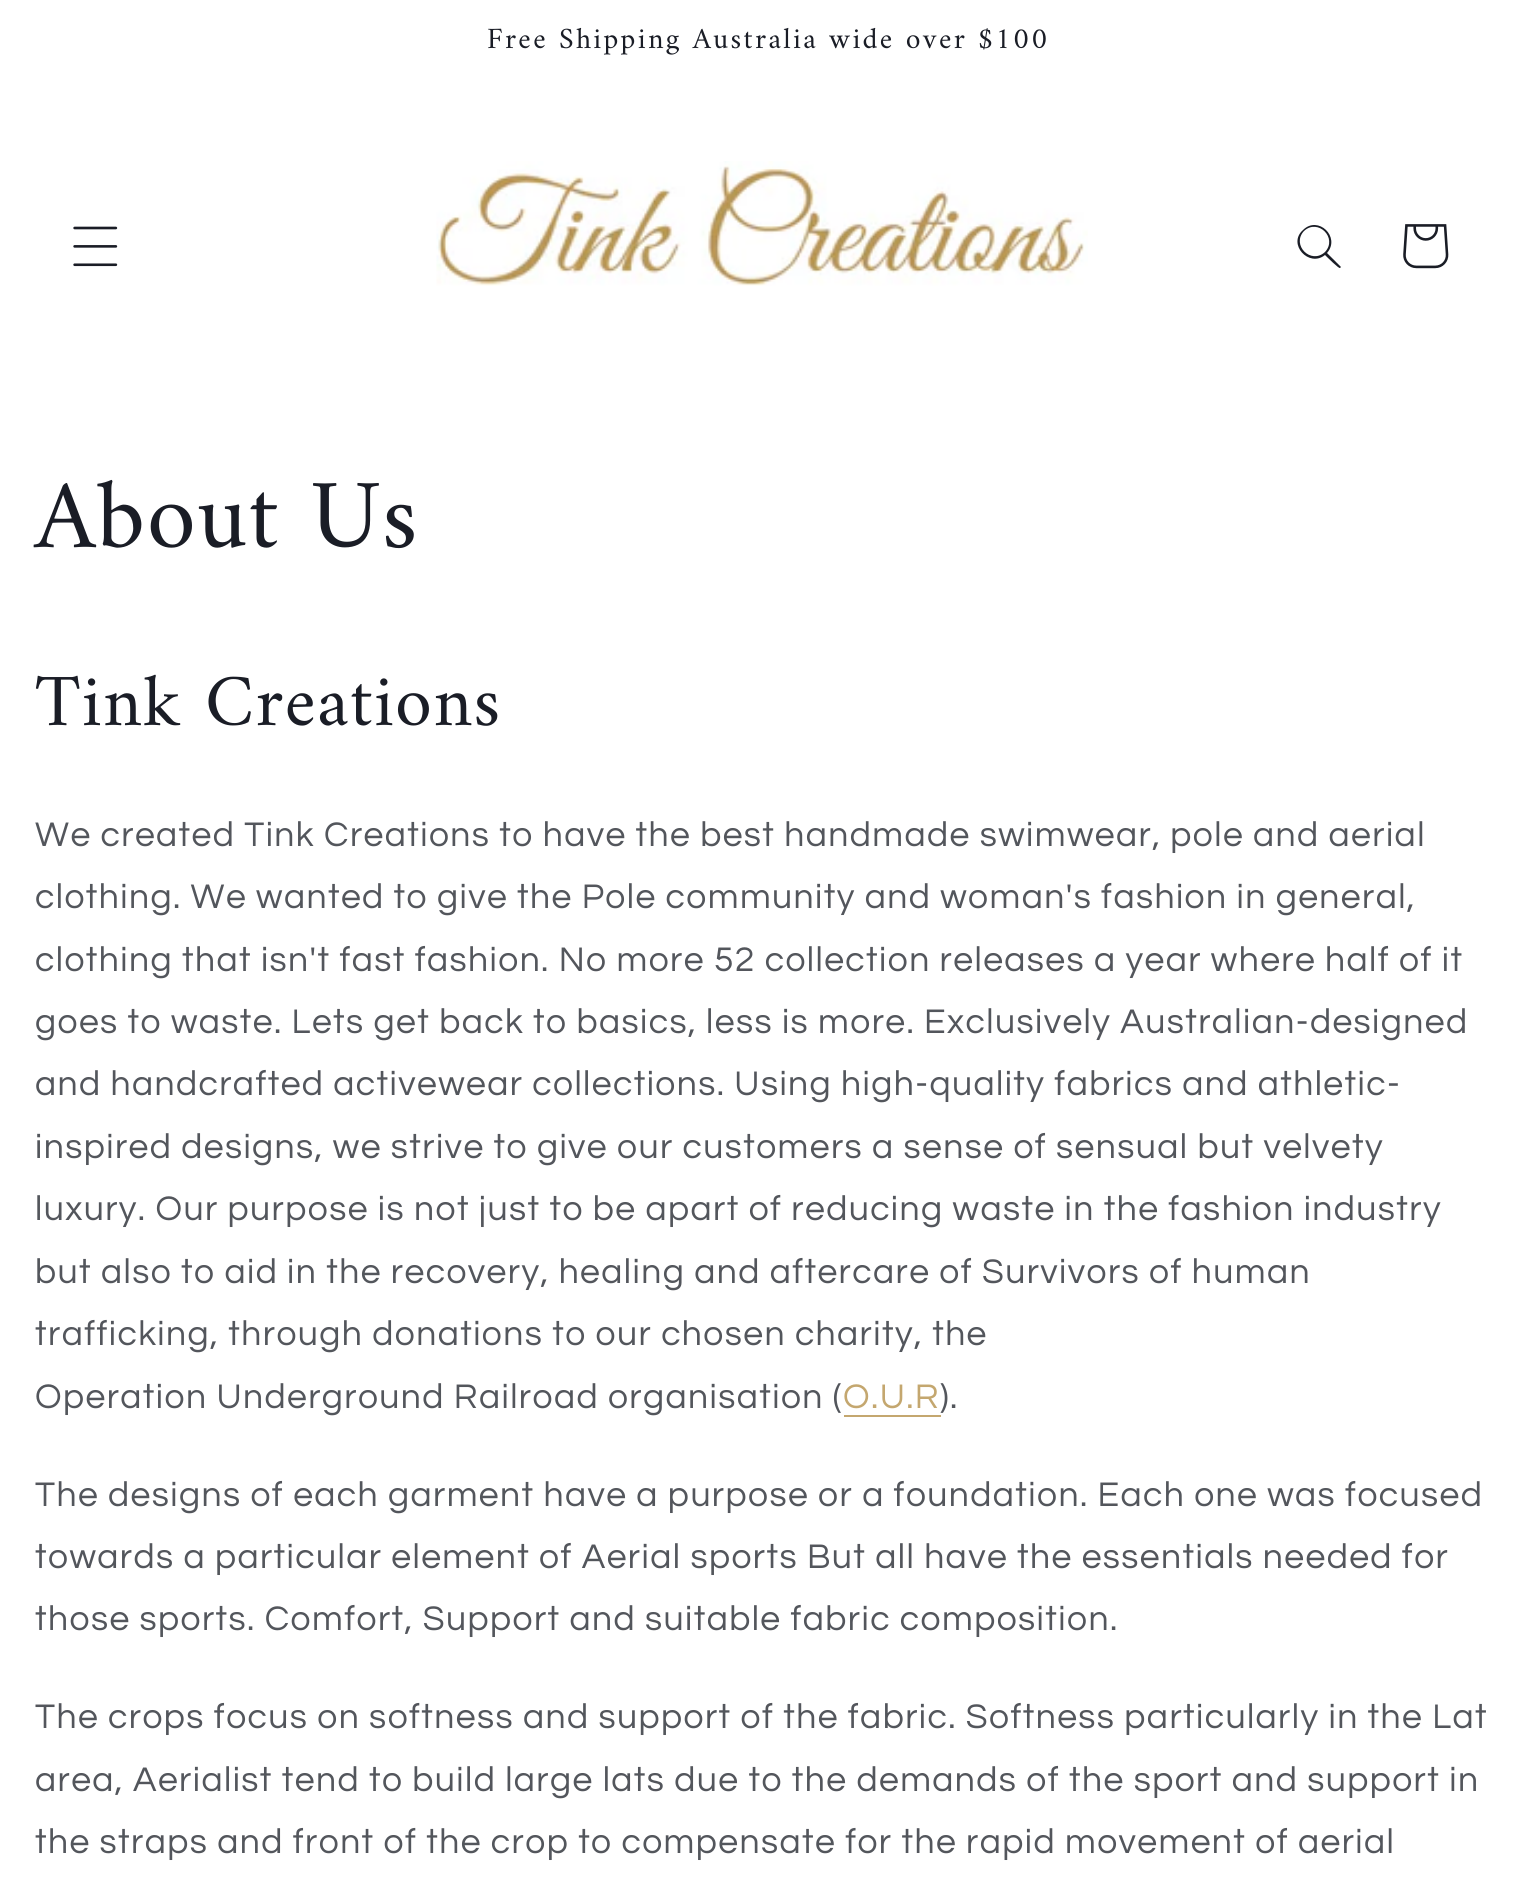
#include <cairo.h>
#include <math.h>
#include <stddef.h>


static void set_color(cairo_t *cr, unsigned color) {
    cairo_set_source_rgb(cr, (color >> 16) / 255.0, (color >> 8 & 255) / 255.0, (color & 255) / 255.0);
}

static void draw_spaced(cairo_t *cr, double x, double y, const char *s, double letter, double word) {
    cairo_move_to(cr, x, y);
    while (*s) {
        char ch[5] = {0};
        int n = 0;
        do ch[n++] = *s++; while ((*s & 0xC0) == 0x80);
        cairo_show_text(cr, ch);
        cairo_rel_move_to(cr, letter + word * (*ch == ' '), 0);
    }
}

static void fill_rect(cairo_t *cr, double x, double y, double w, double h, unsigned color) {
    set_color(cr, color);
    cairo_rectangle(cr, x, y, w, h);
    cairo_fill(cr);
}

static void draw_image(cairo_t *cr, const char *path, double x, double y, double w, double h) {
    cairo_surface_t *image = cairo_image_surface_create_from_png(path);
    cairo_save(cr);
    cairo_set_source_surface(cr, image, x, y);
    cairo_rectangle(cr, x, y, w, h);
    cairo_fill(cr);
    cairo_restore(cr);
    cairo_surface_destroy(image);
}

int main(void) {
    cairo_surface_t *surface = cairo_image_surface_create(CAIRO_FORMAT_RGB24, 1535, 1903);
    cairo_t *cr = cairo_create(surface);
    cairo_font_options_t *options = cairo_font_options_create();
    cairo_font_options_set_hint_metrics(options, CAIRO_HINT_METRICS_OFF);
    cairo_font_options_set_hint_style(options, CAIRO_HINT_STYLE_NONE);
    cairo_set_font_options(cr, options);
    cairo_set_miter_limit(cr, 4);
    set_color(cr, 0xFFFFFF);
    cairo_paint(cr);
    cairo_select_font_face(cr, "Amiri", CAIRO_FONT_SLANT_NORMAL, CAIRO_FONT_WEIGHT_NORMAL);
    cairo_set_font_size(cr, 29.75);
    set_color(cr, 0x1A1D26);
    draw_spaced(cr, 487, 48, "Free Shipping Australia wide over $100", 2.35, 0);
    draw_image(cr, "assets/img1.png", 73, 226, 45, 41);
    draw_image(cr, "assets/img2.png", 436, 161, 652, 125);
    cairo_set_fill_rule(cr, CAIRO_FILL_RULE_EVEN_ODD);
    cairo_new_path(cr);
    cairo_move_to(cr, 1325, 252);
    cairo_curve_to(cr, 1311, 265, 1291, 245, 1304, 231);
    cairo_curve_to(cr, 1318, 218, 1338, 238, 1325, 252);
    cairo_close_path(cr);
    cairo_move_to(cr, 1325, 255);
    cairo_curve_to(cr, 1309, 268, 1287, 244, 1303, 230);
    cairo_curve_to(cr, 1318, 215, 1341, 237, 1327, 253);
    cairo_line_to(cr, 1341, 267);
    cairo_line_to(cr, 1340, 268);
    cairo_curve_to(cr, 1339, 269, 1327, 257, 1325, 255);
    cairo_close_path(cr);
    cairo_fill(cr);
    draw_image(cr, "assets/img3.png", 1403, 224, 46, 45);
    cairo_set_font_size(cr, 99);
    draw_spaced(cr, 35, 547, "About Us", 1.5, 0);
    cairo_set_font_size(cr, 74.25);
    draw_spaced(cr, 35, 725, "Tink Creations", 1.5, 0);
    cairo_select_font_face(cr, "Questrial", CAIRO_FONT_SLANT_NORMAL, CAIRO_FONT_WEIGHT_NORMAL);
    cairo_set_font_size(cr, 35.45);
    set_color(cr, 0x53565C);
    draw_spaced(cr, 35, 846, "We created Tink Creations to have the best handmade swimwear, pole and aerial", 1.42, 0);
    draw_spaced(cr, 35, 908, "clothing. We wanted to give the Pole community and woman's fashion in general,", 1.42, 0);
    draw_spaced(cr, 35, 971, "clothing that isn't fast fashion. No more 52 collection releases a year where half of it", 1.42, 0);
    draw_spaced(cr, 35, 1033, "goes to waste. Lets get back to basics, less is more. Exclusively Australian-designed", 1.42, 0);
    draw_spaced(cr, 35, 1095, "and handcrafted activewear collections. Using high-quality fabrics and athletic-", 1.42, 0);
    draw_spaced(cr, 35, 1158, "inspired designs, we strive to give our customers a sense of sensual but velvety", 1.42, 0);
    draw_spaced(cr, 35, 1220, "luxury. Our purpose is not just to be apart of reducing waste in the fashion industry", 1.42, 0);
    draw_spaced(cr, 35, 1283, "but also to aid in the recovery, healing and aftercare of Survivors of human", 1.42, 0);
    draw_spaced(cr, 35, 1345, "trafficking, through donations to our chosen charity, the", 1.42, 0);
    draw_spaced(cr, 35, 1408, "Operation Underground Railroad organisation (", 1.42, 0);
    set_color(cr, 0xC4A76F);
    draw_spaced(cr, 843, 1408, "O.U.R", 1.42, 0);
    fill_rect(cr, 844, 1415, 97, 2, 0xC4A76F);
    set_color(cr, 0x53565C);
    draw_spaced(cr, 940, 1408, ").", 1.42, 0);
    draw_spaced(cr, 35, 1506, "The designs of each garment have a purpose or a foundation. Each one was focused", 1.42, 0);
    draw_spaced(cr, 35, 1568, "towards a particular element of Aerial sports But all have the essentials needed for", 1.42, 0);
    draw_spaced(cr, 35, 1630, "those sports. Comfort, Support and suitable fabric composition.", 1.42, 0);
    draw_spaced(cr, 35, 1728, "The crops focus on softness and support of the fabric. Softness particularly in the Lat", 1.42, 0);
    draw_spaced(cr, 35, 1791, "area, Aerialist tend to build large lats due to the demands of the sport and support in", 1.42, 0);
    draw_spaced(cr, 35, 1853, "the straps and front of the crop to compensate for the rapid movement of aerial", 1.42, 0);
    cairo_surface_write_to_png(surface, "output.png");
    cairo_font_options_destroy(options);
    cairo_destroy(cr);
    cairo_surface_destroy(surface);
    return 0;
}
